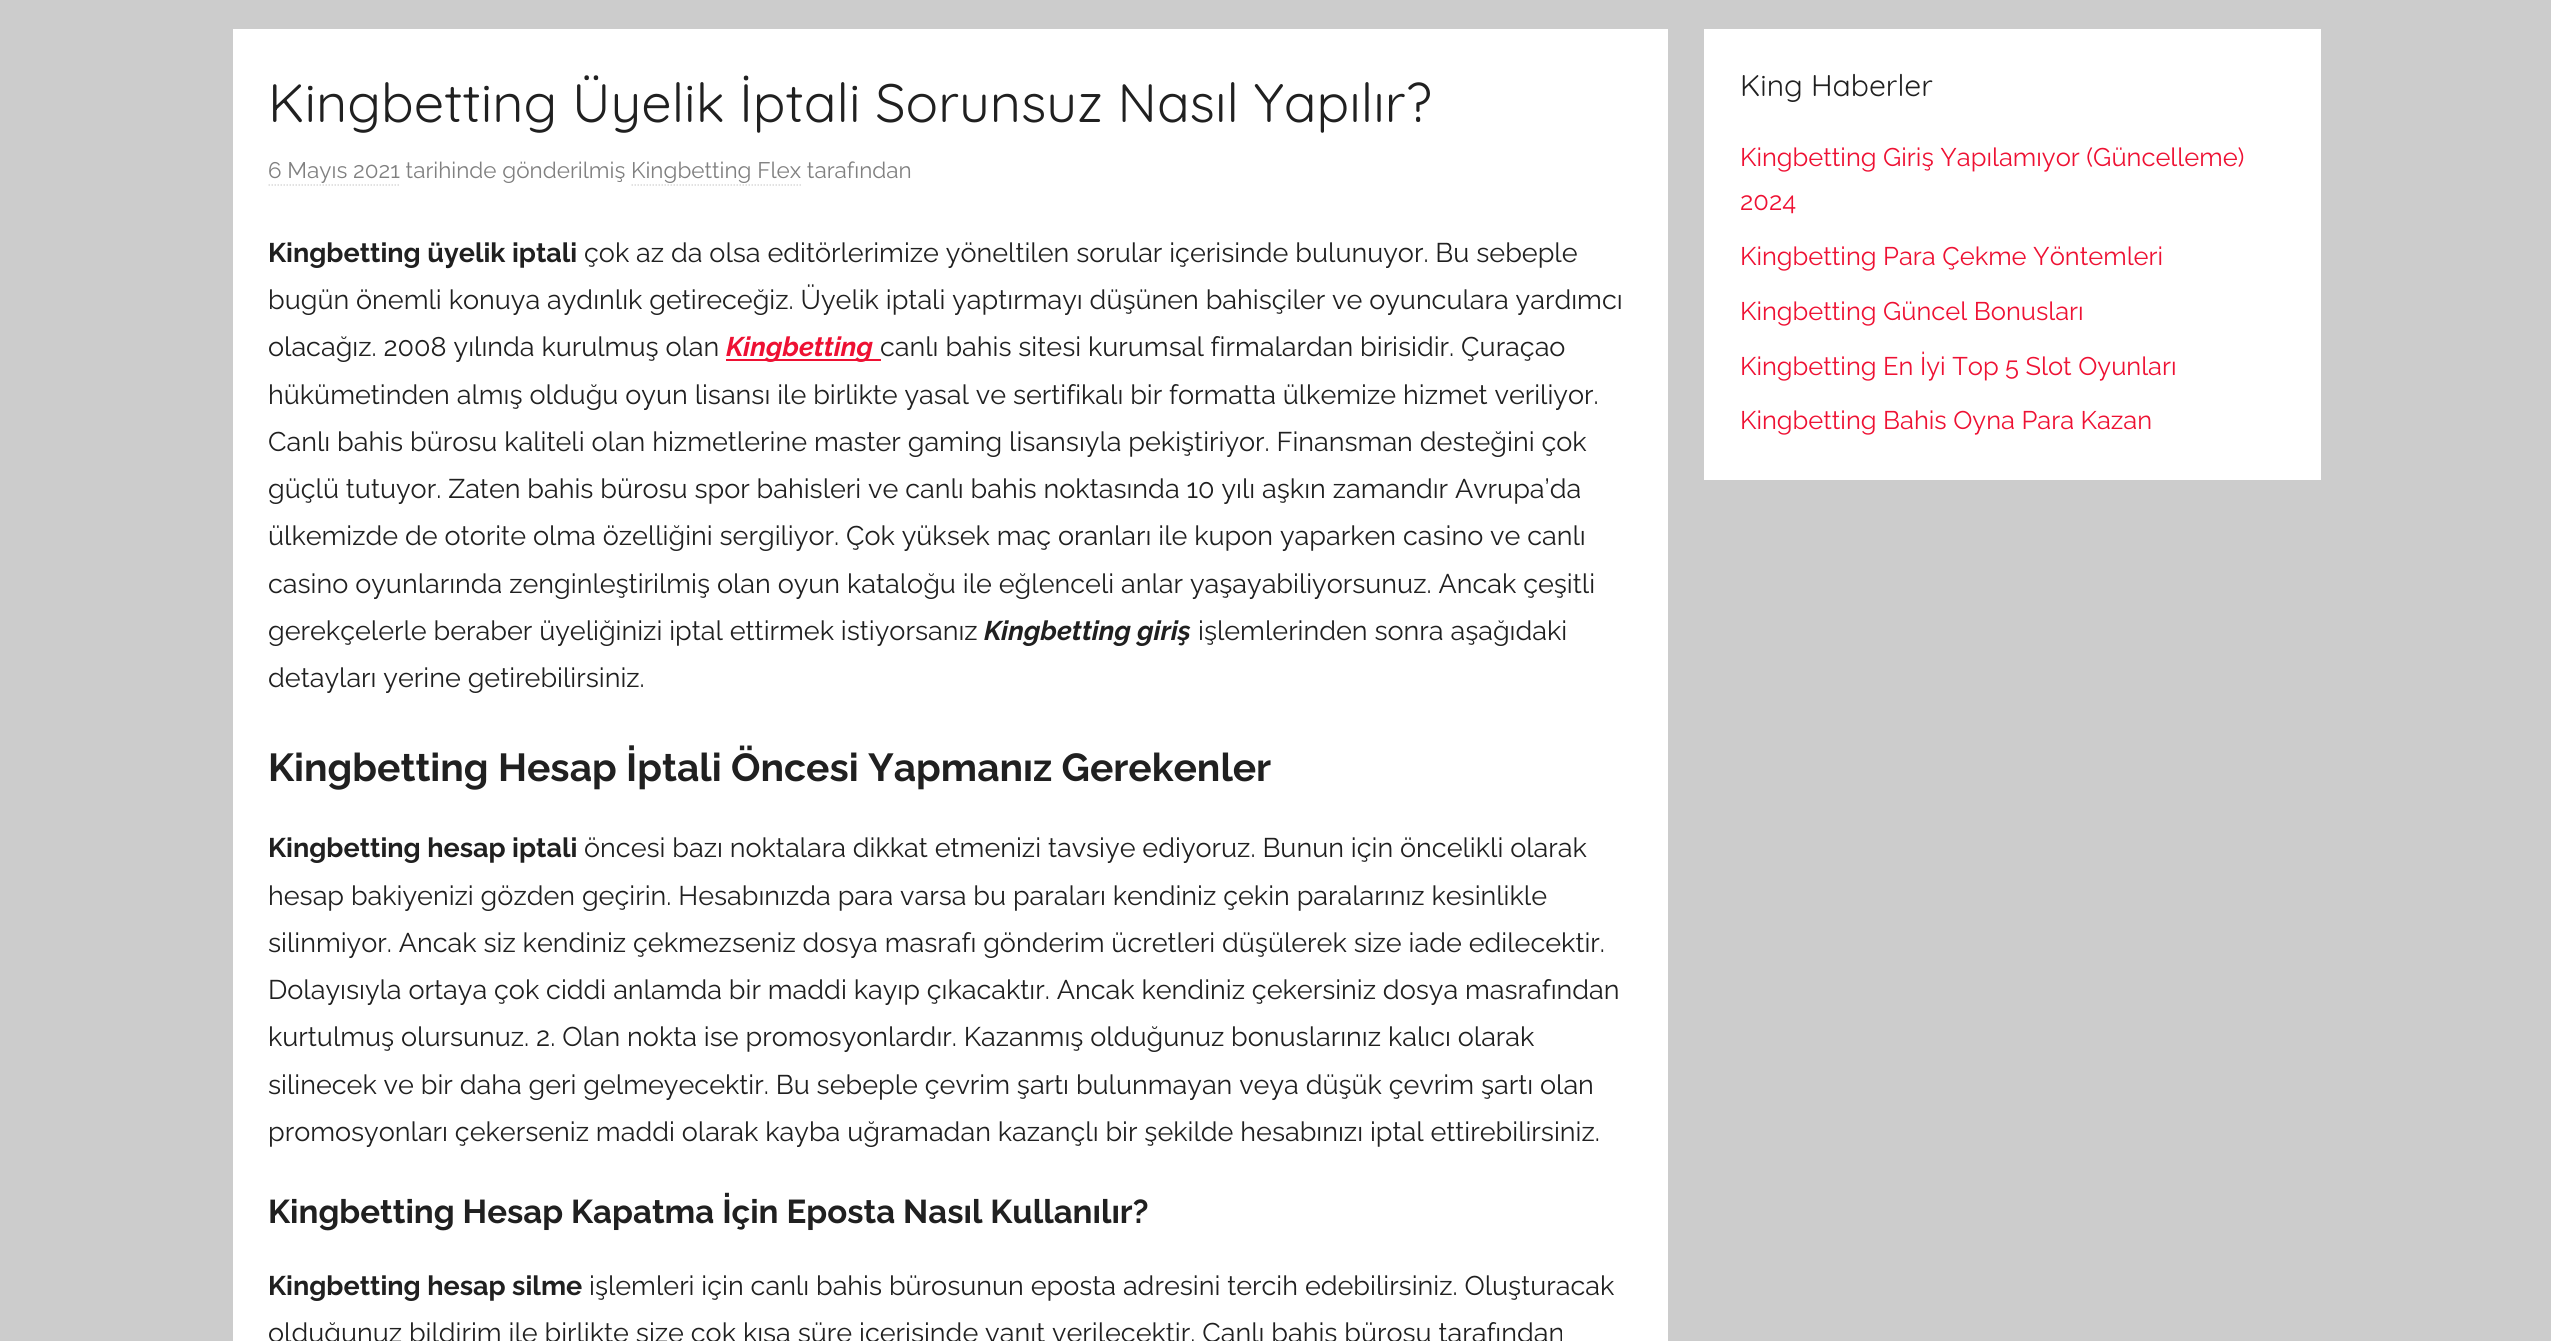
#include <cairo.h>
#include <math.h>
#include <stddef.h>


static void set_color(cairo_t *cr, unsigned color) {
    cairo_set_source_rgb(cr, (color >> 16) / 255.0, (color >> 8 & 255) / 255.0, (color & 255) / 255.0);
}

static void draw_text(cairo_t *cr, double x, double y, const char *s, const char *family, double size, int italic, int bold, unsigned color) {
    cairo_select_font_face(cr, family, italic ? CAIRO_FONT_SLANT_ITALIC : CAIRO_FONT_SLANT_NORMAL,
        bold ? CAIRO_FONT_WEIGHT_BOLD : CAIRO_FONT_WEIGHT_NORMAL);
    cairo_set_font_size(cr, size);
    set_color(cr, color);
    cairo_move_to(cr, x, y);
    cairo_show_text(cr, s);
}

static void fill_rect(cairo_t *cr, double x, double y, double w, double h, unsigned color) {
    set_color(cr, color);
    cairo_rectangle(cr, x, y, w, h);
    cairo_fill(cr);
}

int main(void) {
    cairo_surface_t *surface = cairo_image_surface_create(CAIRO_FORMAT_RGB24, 2551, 1341);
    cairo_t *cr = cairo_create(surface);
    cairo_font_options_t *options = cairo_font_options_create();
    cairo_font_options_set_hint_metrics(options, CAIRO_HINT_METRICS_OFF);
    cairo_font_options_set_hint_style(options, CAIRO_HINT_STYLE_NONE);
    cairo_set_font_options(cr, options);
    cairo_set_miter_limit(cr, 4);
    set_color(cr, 0xCCCCCC);
    cairo_paint(cr);
    fill_rect(cr, 233, 29, 1435, 1312, 0xFFFFFF);
    draw_text(cr, 268, 122, "Kingbetting Üyelik İptali Sorunsuz Nasıl Yapılır?", "Quicksand Light", 54, 0, 0, 0x202020);
    draw_text(cr, 268, 178, "6 Mayıs 2021 tarihinde gönderilmiş Kingbetting Flex tarafından", "Raleway Thin", 22.5, 0, 0, 0x808080);
    cairo_new_path(cr);
    cairo_move_to(cr, 268.5, 185);
    cairo_line_to(cr, 399, 185);
    set_color(cr, 0xD9D9D9);
    cairo_set_line_width(cr, 1.5);
    cairo_set_dash(cr, (double[]){1.5, 1.5}, 2, 0);
    cairo_stroke(cr);
    cairo_new_path(cr);
    cairo_move_to(cr, 631.5, 185);
    cairo_line_to(cr, 801, 185);
    cairo_stroke(cr);
    draw_text(cr, 268, 262, "Kingbetting üyelik iptali", "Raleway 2 Thin", 27, 0, 0, 0x202020);
    draw_text(cr, 584, 262, "çok az da olsa editörlerimize yöneltilen sorular içerisinde bulunuyor. Bu sebeple", "Raleway Thin", 27, 0, 0, 0x202020);
    draw_text(cr, 268, 309, "bugün önemli konuya aydınlık getireceğiz. Üyelik iptali yaptırmayı düşünen bahisçiler ve oyunculara yardımcı", "Raleway Thin", 27, 0, 0, 0x202020);
    draw_text(cr, 268, 356, "olacağız. 2008 yılında kurulmuş olan", "Raleway Thin", 27, 0, 0, 0x202020);
    fill_rect(cr, 726, 359, 155, 2, 0xEE1133);
    draw_text(cr, 726, 356, "Kingbetting", "Raleway Thin", 27, 1, 0, 0xEE1133);
    draw_text(cr, 880, 356, "canlı bahis sitesi kurumsal firmalardan birisidir. Çuraçao", "Raleway Thin", 27, 0, 0, 0x202020);
    draw_text(cr, 268, 404, "hükümetinden almış olduğu oyun lisansı ile birlikte yasal ve sertifikalı bir formatta ülkemize hizmet veriliyor.", "Raleway Thin", 27, 0, 0, 0x202020);
    draw_text(cr, 268, 451, "Canlı bahis bürosu kaliteli olan hizmetlerine master gaming lisansıyla pekiştiriyor. Finansman desteğini çok", "Raleway Thin", 27, 0, 0, 0x202020);
    draw_text(cr, 268, 498, "güçlü tutuyor. Zaten bahis bürosu spor bahisleri ve canlı bahis noktasında 10 yılı aşkın zamandır Avrupa’da", "Raleway Thin", 27, 0, 0, 0x202020);
    draw_text(cr, 268, 545, "ülkemizde de otorite olma özelliğini sergiliyor. Çok yüksek maç oranları ile kupon yaparken casino ve canlı", "Raleway Thin", 27, 0, 0, 0x202020);
    draw_text(cr, 268, 593, "casino oyunlarında zenginleştirilmiş olan oyun kataloğu ile eğlenceli anlar yaşayabiliyorsunuz. Ancak çeşitli", "Raleway Thin", 27, 0, 0, 0x202020);
    draw_text(cr, 268, 640, "gerekçelerle beraber üyeliğinizi iptal ettirmek istiyorsanız", "Raleway Thin", 27, 0, 0, 0x202020);
    draw_text(cr, 984, 640, "Kingbetting giriş", "Raleway Thin", 27, 1, 0, 0x202020);
    draw_text(cr, 1198, 640, "işlemlerinden sonra aşağıdaki", "Raleway Thin", 27, 0, 0, 0x202020);
    draw_text(cr, 268, 687, "detayları yerine getirebilirsiniz.", "Raleway Thin", 27, 0, 0, 0x202020);
    draw_text(cr, 268, 781, "Kingbetting Hesap İptali Öncesi Yapmanız Gerekenler", "Raleway 2 Thin", 39, 0, 0, 0x202020);
    draw_text(cr, 268, 857, "Kingbetting hesap iptali", "Raleway 2 Thin", 27, 0, 0, 0x202020);
    draw_text(cr, 584, 857, "öncesi bazı noktalara dikkat etmenizi tavsiye ediyoruz. Bunun için öncelikli olarak", "Raleway Thin", 27, 0, 0, 0x202020);
    draw_text(cr, 268, 905, "hesap bakiyenizi gözden geçirin. Hesabınızda para varsa bu paraları kendiniz çekin paralarınız kesinlikle", "Raleway Thin", 27, 0, 0, 0x202020);
    draw_text(cr, 268, 952, "silinmiyor. Ancak siz kendiniz çekmezseniz dosya masrafı gönderim ücretleri düşülerek size iade edilecektir.", "Raleway Thin", 27, 0, 0, 0x202020);
    draw_text(cr, 268, 999, "Dolayısıyla ortaya çok ciddi anlamda bir maddi kayıp çıkacaktır. Ancak kendiniz çekersiniz dosya masrafından", "Raleway Thin", 27, 0, 0, 0x202020);
    draw_text(cr, 268, 1046, "kurtulmuş olursunuz. 2. Olan nokta ise promosyonlardır. Kazanmış olduğunuz bonuslarınız kalıcı olarak", "Raleway Thin", 27, 0, 0, 0x202020);
    draw_text(cr, 268, 1094, "silinecek ve bir daha geri gelmeyecektir. Bu sebeple çevrim şartı bulunmayan veya düşük çevrim şartı olan", "Raleway Thin", 27, 0, 0, 0x202020);
    draw_text(cr, 268, 1141, "promosyonları çekerseniz maddi olarak kayba uğramadan kazançlı bir şekilde hesabınızı iptal ettirebilirsiniz.", "Raleway Thin", 27, 0, 0, 0x202020);
    draw_text(cr, 268, 1223, "Kingbetting Hesap Kapatma İçin Eposta Nasıl Kullanılır?", "Raleway 2 Thin", 33, 0, 0, 0x202020);
    draw_text(cr, 268, 1295, "Kingbetting hesap silme", "Raleway 2 Thin", 27, 0, 0, 0x202020);
    draw_text(cr, 589, 1295, "işlemleri için canlı bahis bürosunun eposta adresini tercih edebilirsiniz. Oluşturacak", "Raleway Thin", 27, 0, 0, 0x202020);
    draw_text(cr, 268, 1342, "olduğunuz bildirim ile birlikte size çok kısa süre içerisinde yanıt verilecektir. Canlı bahis bürosu tarafından", "Raleway Thin", 27, 0, 0, 0x202020);
    fill_rect(cr, 1704, 29, 617, 451, 0xFFFFFF);
    draw_text(cr, 1740, 96, "King Haberler", "Quicksand Light", 30, 0, 0, 0x202020);
    draw_text(cr, 1740, 166, "Kingbetting Giriş Yapılamıyor (Güncelleme)", "Raleway Thin", 25.5, 0, 0, 0xEE1133);
    draw_text(cr, 1740, 210, "2024", "Raleway Thin", 25.5, 0, 0, 0xEE1133);
    draw_text(cr, 1740, 265, "Kingbetting Para Çekme Yöntemleri", "Raleway Thin", 25.5, 0, 0, 0xEE1133);
    draw_text(cr, 1740, 320, "Kingbetting Güncel Bonusları", "Raleway Thin", 25.5, 0, 0, 0xEE1133);
    draw_text(cr, 1740, 375, "Kingbetting En İyi Top 5 Slot Oyunları", "Raleway Thin", 25.5, 0, 0, 0xEE1133);
    draw_text(cr, 1740, 429, "Kingbetting Bahis Oyna Para Kazan", "Raleway Thin", 25.5, 0, 0, 0xEE1133);
    cairo_surface_write_to_png(surface, "output.png");
    cairo_font_options_destroy(options);
    cairo_destroy(cr);
    cairo_surface_destroy(surface);
    return 0;
}
